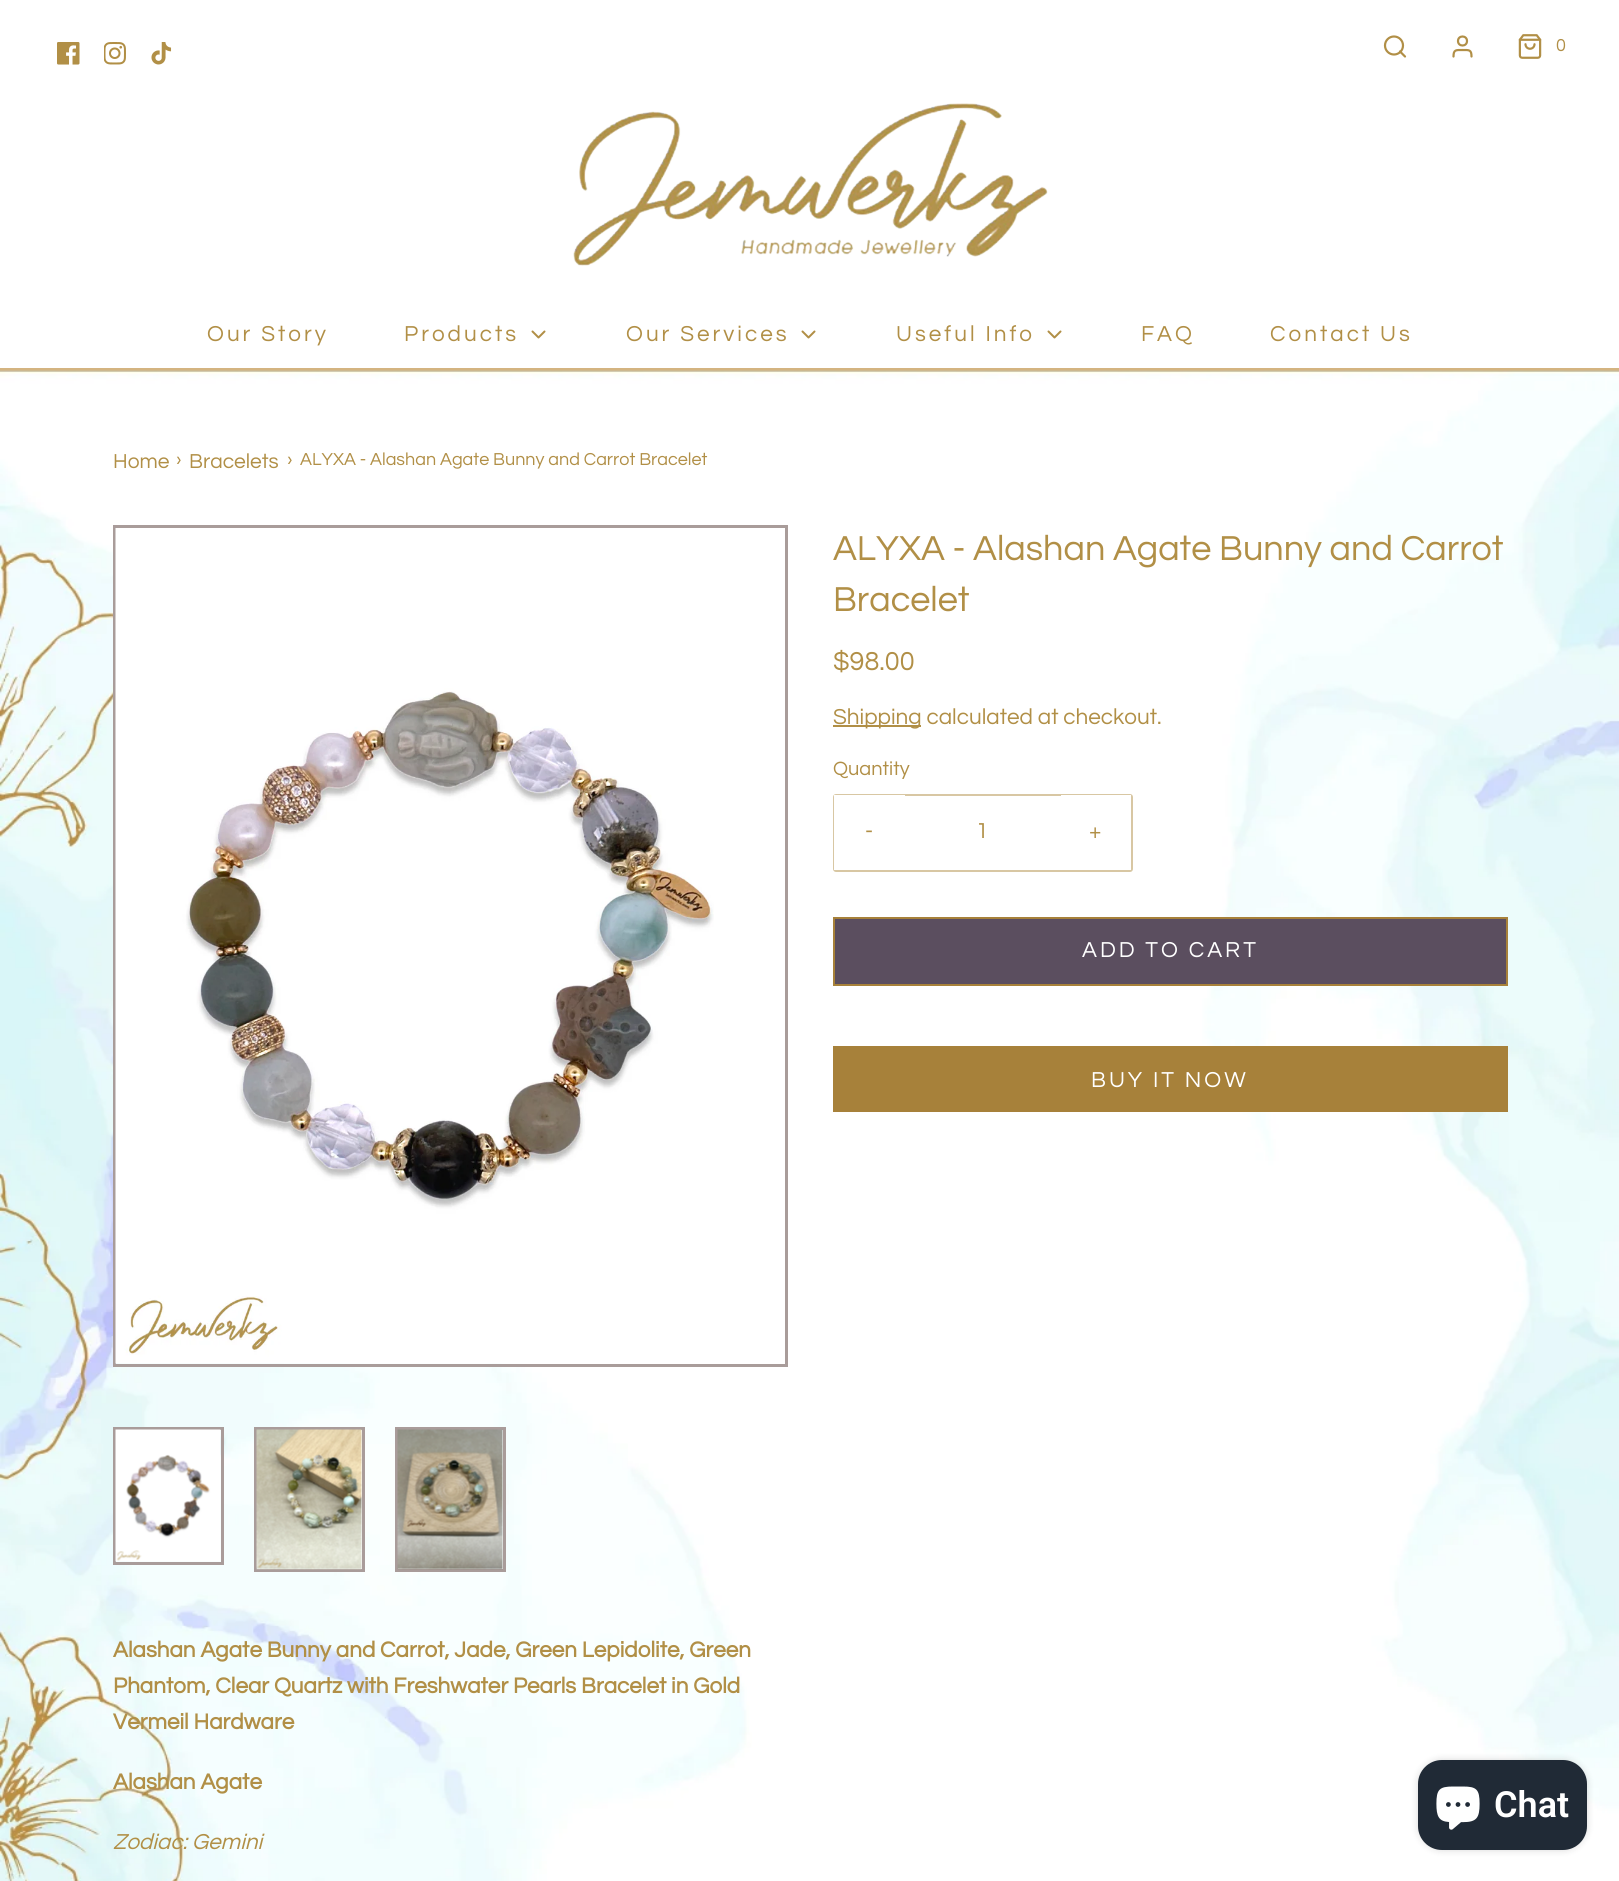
#include <cairo.h>
#include <math.h>
#include <stddef.h>


static void set_color(cairo_t *cr, unsigned color) {
    cairo_set_source_rgb(cr, (color >> 16) / 255.0, (color >> 8 & 255) / 255.0, (color & 255) / 255.0);
}

static void draw_text(cairo_t *cr, double x, double y, const char *s, const char *family, double size, int italic, int bold, unsigned color) {
    cairo_select_font_face(cr, family, italic ? CAIRO_FONT_SLANT_ITALIC : CAIRO_FONT_SLANT_NORMAL,
        bold ? CAIRO_FONT_WEIGHT_BOLD : CAIRO_FONT_WEIGHT_NORMAL);
    cairo_set_font_size(cr, size);
    set_color(cr, color);
    cairo_move_to(cr, x, y);
    cairo_show_text(cr, s);
}

static void draw_spaced(cairo_t *cr, double x, double y, const char *s, double letter, double word) {
    cairo_move_to(cr, x, y);
    while (*s) {
        char ch[5] = {0};
        int n = 0;
        do ch[n++] = *s++; while ((*s & 0xC0) == 0x80);
        cairo_show_text(cr, ch);
        cairo_rel_move_to(cr, letter + word * (*ch == ' '), 0);
    }
}

static void fill_rect(cairo_t *cr, double x, double y, double w, double h, unsigned color) {
    set_color(cr, color);
    cairo_rectangle(cr, x, y, w, h);
    cairo_fill(cr);
}

static void rounded_rect(cairo_t *cr, double x, double y, double w, double h, double r) {
    cairo_new_sub_path(cr);
    cairo_arc(cr, x + w - r, y + h - r, r, 0, M_PI / 2);
    cairo_arc(cr, x + r, y + h - r, r, M_PI / 2, M_PI);
    cairo_arc(cr, x + r, y + r, r, M_PI, 1.5 * M_PI);
    cairo_arc(cr, x + w - r, y + r, r, 1.5 * M_PI, 2 * M_PI);
    cairo_close_path(cr);
}

static void draw_shadow(cairo_t *cr, double x, double y, double w, double h, double r, double blur, double alpha) {
    cairo_push_group_with_content(cr, CAIRO_CONTENT_ALPHA);
    cairo_set_operator(cr, CAIRO_OPERATOR_SOURCE);
    for (int i = 15; i >= -15 && fmin(w, h) + blur * i / 3 > 0; i -= 2) {
        double e = blur * i / 6;
        cairo_set_source_rgba(cr, 0, 0, 0, alpha * erfc((i - 1) / 8.5) / 2);
        rounded_rect(cr, x - e, y - e, w + 2 * e, h + 2 * e, fmax(0, fmin(r + e + blur * .6, fmin(w, h) / 2 + e)));
        cairo_fill(cr);
    }
    cairo_pattern_t *soft = cairo_pop_group(cr);
    cairo_mask(cr, soft);
    cairo_pattern_destroy(soft);
}

static void draw_image(cairo_t *cr, const char *path, double x, double y, double w, double h) {
    cairo_surface_t *image = cairo_image_surface_create_from_png(path);
    cairo_save(cr);
    cairo_set_source_surface(cr, image, x, y);
    cairo_rectangle(cr, x, y, w, h);
    cairo_fill(cr);
    cairo_restore(cr);
    cairo_surface_destroy(image);
}

int main(void) {
    cairo_surface_t *surface = cairo_image_surface_create(CAIRO_FORMAT_RGB24, 1619, 1881);
    cairo_t *cr = cairo_create(surface);
    cairo_font_options_t *options = cairo_font_options_create();
    cairo_font_options_set_hint_metrics(options, CAIRO_HINT_METRICS_OFF);
    cairo_font_options_set_hint_style(options, CAIRO_HINT_STYLE_NONE);
    cairo_set_font_options(cr, options);
    cairo_set_miter_limit(cr, 4);
    set_color(cr, 0xFFFFFF);
    cairo_paint(cr);
    draw_image(cr, "assets/img1.png", 57, 42, 23, 23);
    draw_image(cr, "assets/img2.png", 104, 42, 22, 23);
    draw_image(cr, "assets/img3.png", 151, 42, 21, 23);
    cairo_arc(cr, 1394, 45.5, 9, 0, 2 * M_PI);
    set_color(cr, 0xB18F46);
    cairo_set_line_width(cr, 2.2);
    cairo_stroke(cr);
    cairo_new_path(cr);
    cairo_move_to(cr, 1405, 56.5);
    cairo_line_to(cr, 1400, 51.5);
    cairo_set_line_cap(cr, CAIRO_LINE_CAP_ROUND);
    cairo_set_line_join(cr, CAIRO_LINE_JOIN_ROUND);
    cairo_stroke(cr);
    cairo_new_path(cr);
    cairo_move_to(cr, 1471.5, 56.5);
    cairo_curve_to(cr, 1471.5, 49.5, 1469, 50, 1462.5, 50);
    cairo_curve_to(cr, 1456, 50, 1453.5, 49.5, 1453.5, 56.5);
    cairo_stroke(cr);
    cairo_arc(cr, 1462.5, 41, 4.5, 0, 2 * M_PI);
    cairo_set_line_cap(cr, CAIRO_LINE_CAP_BUTT);
    cairo_set_line_join(cr, CAIRO_LINE_JOIN_MITER);
    cairo_stroke(cr);
    draw_image(cr, "assets/img4.png", 1518, 34, 24, 25);
    draw_text(cr, 1556, 51, "0", "Questrial", 18, 0, 0, 0xB18F46);
    draw_image(cr, "assets/img5.png", 573, 103, 475, 163);
    fill_rect(cr, 0, 368, 1619, 3, 0xD4B481);
    cairo_set_font_size(cr, 22.5);
    set_color(cr, 0xB18F46);
    draw_spaced(cr, 207, 341, "Our Story", 3, 0);
    draw_spaced(cr, 404, 341, "Products", 3, 0);
    cairo_new_path(cr);
    cairo_move_to(cr, 532.5, 331.5);
    cairo_line_to(cr, 538.5, 337.5);
    cairo_line_to(cr, 544.5, 331.5);
    cairo_set_line_width(cr, 2);
    cairo_set_line_cap(cr, CAIRO_LINE_CAP_ROUND);
    cairo_set_line_join(cr, CAIRO_LINE_JOIN_ROUND);
    cairo_stroke(cr);
    draw_spaced(cr, 626, 341, "Our Services", 3, 0);
    cairo_new_path(cr);
    cairo_move_to(cr, 802.5, 331.5);
    cairo_line_to(cr, 808.5, 337.5);
    cairo_line_to(cr, 814.5, 331.5);
    cairo_stroke(cr);
    draw_spaced(cr, 896, 341, "Useful Info", 3, 0);
    cairo_new_path(cr);
    cairo_move_to(cr, 1048.5, 331.5);
    cairo_line_to(cr, 1054.5, 337.5);
    cairo_line_to(cr, 1060.5, 331.5);
    cairo_stroke(cr);
    draw_spaced(cr, 1141, 341, "FAQ", 3, 0);
    draw_spaced(cr, 1270, 341, "Contact Us", 3, 0);
    draw_image(cr, "assets/img6.png", 0, 370, 1619, 1511);
    draw_text(cr, 113, 468, "Home", "Questrial", 21, 0, 0, 0xB18F46);
    draw_text(cr, 176, 465, "›", "Questrial", 18, 0, 0, 0xB18F46);
    draw_text(cr, 189, 468, "Bracelets", "Questrial", 21, 0, 0, 0xB18F46);
    draw_text(cr, 287, 465, "›", "Questrial", 18, 0, 0, 0xB18F46);
    draw_text(cr, 300, 465, "ALYXA - Alashan Agate Bunny and Carrot Bracelet", "Questrial", 18, 0, 0, 0xB18F46);
    draw_text(cr, 833, 560, "ALYXA - Alashan Agate Bunny and Carrot", "Questrial", 36, 0, 0, 0xB18F46);
    draw_text(cr, 833, 611, "Bracelet", "Questrial", 36, 0, 0, 0xB18F46);
    draw_text(cr, 833, 670, "$98.00", "Questrial", 27, 0, 0, 0xB18F46);
    fill_rect(cr, 833, 725, 88, 2, 0xB18F46);
    draw_text(cr, 833, 724, "Shipping calculated at checkout.", "Questrial", 22.5, 0, 0, 0xB18F46);
    draw_text(cr, 833, 775, "Quantity", "Questrial", 20, 0, 0, 0xB18F46);
    rounded_rect(cr, 834, 795, 298, 76, 2);
    set_color(cr, 0xD8C7A3);
    cairo_set_line_cap(cr, CAIRO_LINE_CAP_BUTT);
    cairo_set_line_join(cr, CAIRO_LINE_JOIN_MITER);
    cairo_stroke(cr);
    fill_rect(cr, 834, 795, 71, 75, 0xFFFFFF);
    draw_text(cr, 865, 838, "-", "Questrial", 22.5, 0, 0, 0xB18F46);
    draw_text(cr, 976, 838, "1", "Questrial", 22.5, 0, 0, 0xB18F46);
    fill_rect(cr, 1061, 795, 70, 75, 0xFFFFFF);
    draw_text(cr, 1089, 838, "+", "Questrial", 22.5, 0, 0, 0xB18F46);
    set_color(cr, 0x5B4E5F);
    cairo_rectangle(cr, 834, 918, 673, 67);
    cairo_fill_preserve(cr);
    set_color(cr, 0xA7813A);
    cairo_stroke(cr);
    set_color(cr, 0xFFFFFF);
    draw_spaced(cr, 1082, 957, "ADD TO CART", 3, 0);
    fill_rect(cr, 833, 1046, 675, 66, 0xA7813A);
    set_color(cr, 0xFFFFFF);
    draw_spaced(cr, 1091, 1087, "BUY IT NOW", 3, 0);
    cairo_rectangle(cr, 114.5, 526.5, 672, 839);
    set_color(cr, 0xA99C9A);
    cairo_set_line_width(cr, 3);
    cairo_stroke(cr);
    draw_image(cr, "assets/img7.png", 115, 528, 599, 836);
    cairo_rectangle(cr, 114.5, 1428.5, 108, 135);
    cairo_stroke(cr);
    draw_image(cr, "assets/img8.png", 115, 1429, 106, 133);
    cairo_rectangle(cr, 255.5, 1428.5, 108, 142);
    cairo_stroke(cr);
    draw_image(cr, "assets/img9.png", 256, 1429, 106, 141);
    cairo_rectangle(cr, 396.5, 1428.5, 108, 142);
    cairo_stroke(cr);
    draw_image(cr, "assets/img10.png", 397, 1429, 106, 141);
    draw_text(cr, 113, 1657, "Alashan Agate Bunny and Carrot, Jade, Green Lepidolite, Green", "Questrial", 22.5, 0, 1, 0xB18F46);
    draw_text(cr, 113, 1693, "Phantom, Clear Quartz with Freshwater Pearls Bracelet in Gold", "Questrial", 22.5, 0, 1, 0xB18F46);
    draw_text(cr, 113, 1729, "Vermeil Hardware", "Questrial", 22.5, 0, 1, 0xB18F46);
    draw_text(cr, 113, 1789, "Alashan Agate", "Questrial", 22.5, 0, 1, 0xB18F46);
    draw_text(cr, 113, 1849, "Zodiac: Gemini", "Questrial", 22.5, 1, 0, 0xB18F46);
    set_color(cr, 0x000000);
    draw_shadow(cr, 1418, 1760, 169, 90, 24, 4, 0.15);
    set_color(cr, 0x202A36);
    rounded_rect(cr, 1418, 1760, 169, 90, 24);
    cairo_fill(cr);
    draw_image(cr, "assets/img11.png", 1436, 1786, 44, 44);
    draw_text(cr, 1494, 1817, "Chat", "Roboto SemiBold", 36, 0, 0, 0xFFFFFF);
    cairo_surface_write_to_png(surface, "output.png");
    cairo_font_options_destroy(options);
    cairo_destroy(cr);
    cairo_surface_destroy(surface);
    return 0;
}
